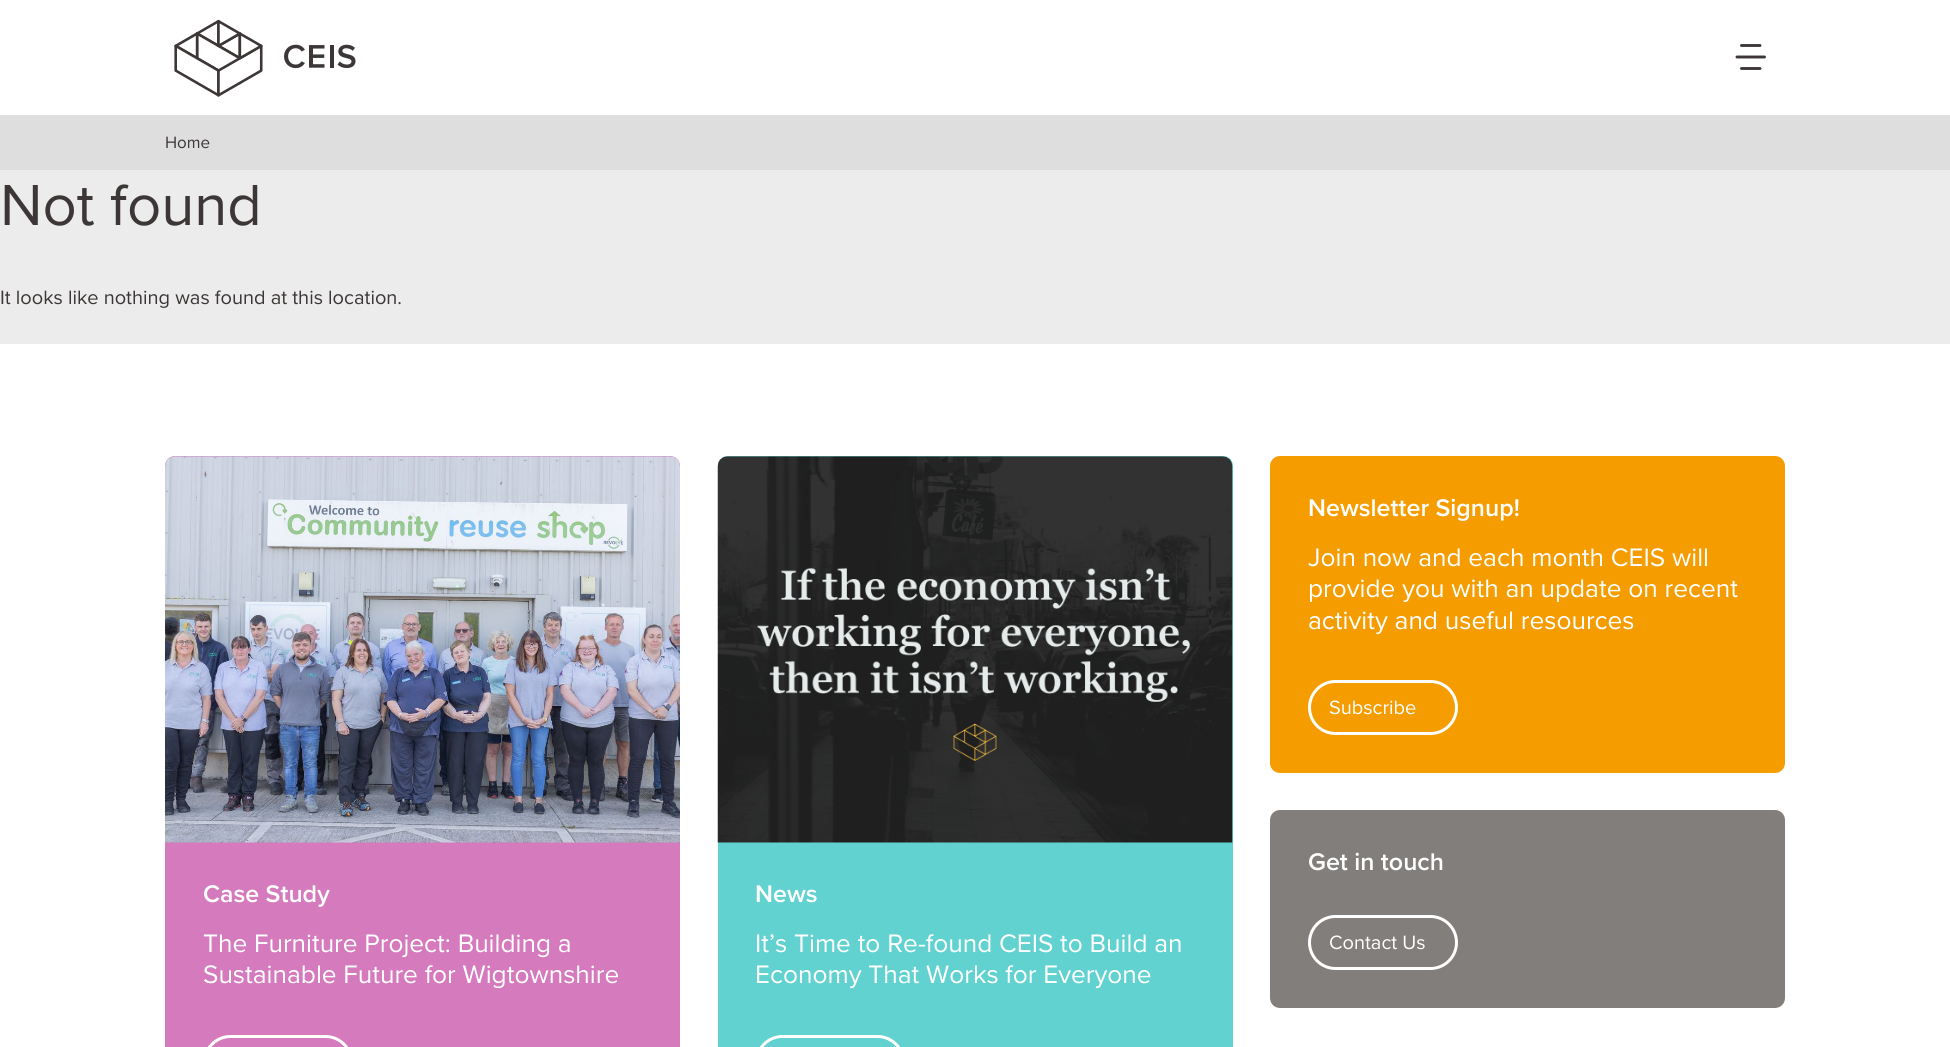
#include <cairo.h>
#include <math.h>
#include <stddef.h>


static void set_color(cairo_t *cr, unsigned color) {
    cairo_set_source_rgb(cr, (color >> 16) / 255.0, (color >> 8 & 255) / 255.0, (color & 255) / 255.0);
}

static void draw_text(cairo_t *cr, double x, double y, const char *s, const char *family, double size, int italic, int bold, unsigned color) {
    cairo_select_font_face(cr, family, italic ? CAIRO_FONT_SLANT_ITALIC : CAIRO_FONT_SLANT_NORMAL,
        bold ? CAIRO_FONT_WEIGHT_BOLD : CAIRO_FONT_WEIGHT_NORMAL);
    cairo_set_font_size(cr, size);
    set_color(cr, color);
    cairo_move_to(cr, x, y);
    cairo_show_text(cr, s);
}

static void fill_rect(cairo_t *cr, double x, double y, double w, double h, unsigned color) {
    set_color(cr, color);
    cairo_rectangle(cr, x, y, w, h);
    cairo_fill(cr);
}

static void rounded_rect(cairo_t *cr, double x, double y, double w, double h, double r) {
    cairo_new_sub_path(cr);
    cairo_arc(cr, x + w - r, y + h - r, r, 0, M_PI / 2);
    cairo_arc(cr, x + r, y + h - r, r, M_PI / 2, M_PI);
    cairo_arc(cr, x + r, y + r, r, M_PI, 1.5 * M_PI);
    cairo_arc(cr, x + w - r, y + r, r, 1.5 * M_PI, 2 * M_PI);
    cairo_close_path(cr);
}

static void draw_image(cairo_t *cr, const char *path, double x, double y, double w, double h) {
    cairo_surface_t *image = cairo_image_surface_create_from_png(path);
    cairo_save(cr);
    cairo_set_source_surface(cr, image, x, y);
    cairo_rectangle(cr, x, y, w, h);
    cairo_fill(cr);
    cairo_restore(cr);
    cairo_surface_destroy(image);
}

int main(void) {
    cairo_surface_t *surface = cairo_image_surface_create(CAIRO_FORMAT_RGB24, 1950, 1047);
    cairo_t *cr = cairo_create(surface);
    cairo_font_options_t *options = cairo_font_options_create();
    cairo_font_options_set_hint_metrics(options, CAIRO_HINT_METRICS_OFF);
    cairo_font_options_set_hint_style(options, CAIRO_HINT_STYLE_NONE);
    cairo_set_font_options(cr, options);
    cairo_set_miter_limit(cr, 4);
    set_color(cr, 0xECECEC);
    cairo_paint(cr);
    fill_rect(cr, 0, 0, 1950, 115, 0xFFFFFF);
    draw_image(cr, "assets/img1.png", 174, 19, 182, 78);
    cairo_new_path(cr);
    cairo_move_to(cr, 1741.5, 45.5);
    cairo_line_to(cr, 1760, 45.5);
    cairo_move_to(cr, 1737, 57);
    cairo_line_to(cr, 1764.5, 57);
    cairo_move_to(cr, 1741.5, 68.5);
    cairo_line_to(cr, 1760, 68.5);
    set_color(cr, 0x3C3736);
    cairo_set_line_width(cr, 2.9);
    cairo_set_line_cap(cr, CAIRO_LINE_CAP_ROUND);
    cairo_set_line_join(cr, CAIRO_LINE_JOIN_ROUND);
    cairo_stroke(cr);
    fill_rect(cr, 0, 115, 1950, 55, 0xDEDEDE);
    draw_text(cr, 165, 148, "Home", "Proxima Nova", 17, 0, 0, 0x3C3736);
    draw_text(cr, 0, 225, "Not found", "Proxima Nova", 60, 0, 0, 0x3C3736);
    draw_text(cr, 0, 304, "It looks like nothing was found at this location.", "Proxima Nova", 20, 0, 0, 0x3C3736);
    fill_rect(cr, 0, 344, 1950, 703, 0xFFFFFF);
    set_color(cr, 0xD47ABD);
    rounded_rect(cr, 165, 456, 515, 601, 10);
    cairo_fill(cr);
    draw_image(cr, "assets/img2.png", 165, 456, 515, 387);
    draw_text(cr, 203, 902, "Case Study", "Proxima Nova SemiBold", 25, 0, 0, 0xFFFFFF);
    draw_text(cr, 203, 952, "The Furniture Project: Building a", "Proxima Nova", 26.25, 0, 0, 0xFFFFFF);
    draw_text(cr, 203, 983, "Sustainable Future for Wigtownshire", "Proxima Nova", 26.25, 0, 0, 0xFFFFFF);
    rounded_rect(cr, 204.5, 1036.5, 147, 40, 26);
    cairo_set_line_width(cr, 3);
    cairo_set_line_cap(cr, CAIRO_LINE_CAP_BUTT);
    cairo_set_line_join(cr, CAIRO_LINE_JOIN_MITER);
    cairo_stroke(cr);
    set_color(cr, 0x62D2D0);
    rounded_rect(cr, 718, 456, 515, 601, 10);
    cairo_fill(cr);
    draw_image(cr, "assets/img3.png", 717, 456, 516, 387);
    draw_text(cr, 755, 902, "News", "Proxima Nova SemiBold", 25, 0, 0, 0xFFFFFF);
    draw_text(cr, 755, 952, "It’s Time to Re-found CEIS to Build an", "Proxima Nova", 26.25, 0, 0, 0xFFFFFF);
    draw_text(cr, 755, 983, "Economy That Works for Everyone", "Proxima Nova", 26.25, 0, 0, 0xFFFFFF);
    rounded_rect(cr, 756.5, 1036.5, 147, 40, 26);
    cairo_stroke(cr);
    set_color(cr, 0xF59C00);
    rounded_rect(cr, 1270, 456, 515, 317, 10);
    cairo_fill(cr);
    draw_text(cr, 1308, 516, "Newsletter Signup!", "Proxima Nova SemiBold", 25, 0, 0, 0xFFFFFF);
    draw_text(cr, 1308, 566, "Join now and each month CEIS will", "Proxima Nova", 26.25, 0, 0, 0xFFFFFF);
    draw_text(cr, 1308, 597, "provide you with an update on recent", "Proxima Nova", 26.25, 0, 0, 0xFFFFFF);
    draw_text(cr, 1308, 629, "activity and useful resources", "Proxima Nova", 26.25, 0, 0, 0xFFFFFF);
    rounded_rect(cr, 1309.5, 681.5, 147, 52, 26);
    cairo_stroke(cr);
    draw_text(cr, 1329, 714, "Subscribe", "Proxima Nova", 20, 0, 0, 0xFFFFFF);
    set_color(cr, 0x827E7C);
    rounded_rect(cr, 1270, 810, 515, 198, 10);
    cairo_fill(cr);
    draw_text(cr, 1308, 870, "Get in touch", "Proxima Nova SemiBold", 25, 0, 0, 0xFFFFFF);
    rounded_rect(cr, 1309.5, 916.5, 147, 52, 26);
    cairo_stroke(cr);
    draw_text(cr, 1329, 949, "Contact Us", "Proxima Nova", 20, 0, 0, 0xFFFFFF);
    cairo_surface_write_to_png(surface, "output.png");
    cairo_font_options_destroy(options);
    cairo_destroy(cr);
    cairo_surface_destroy(surface);
    return 0;
}
